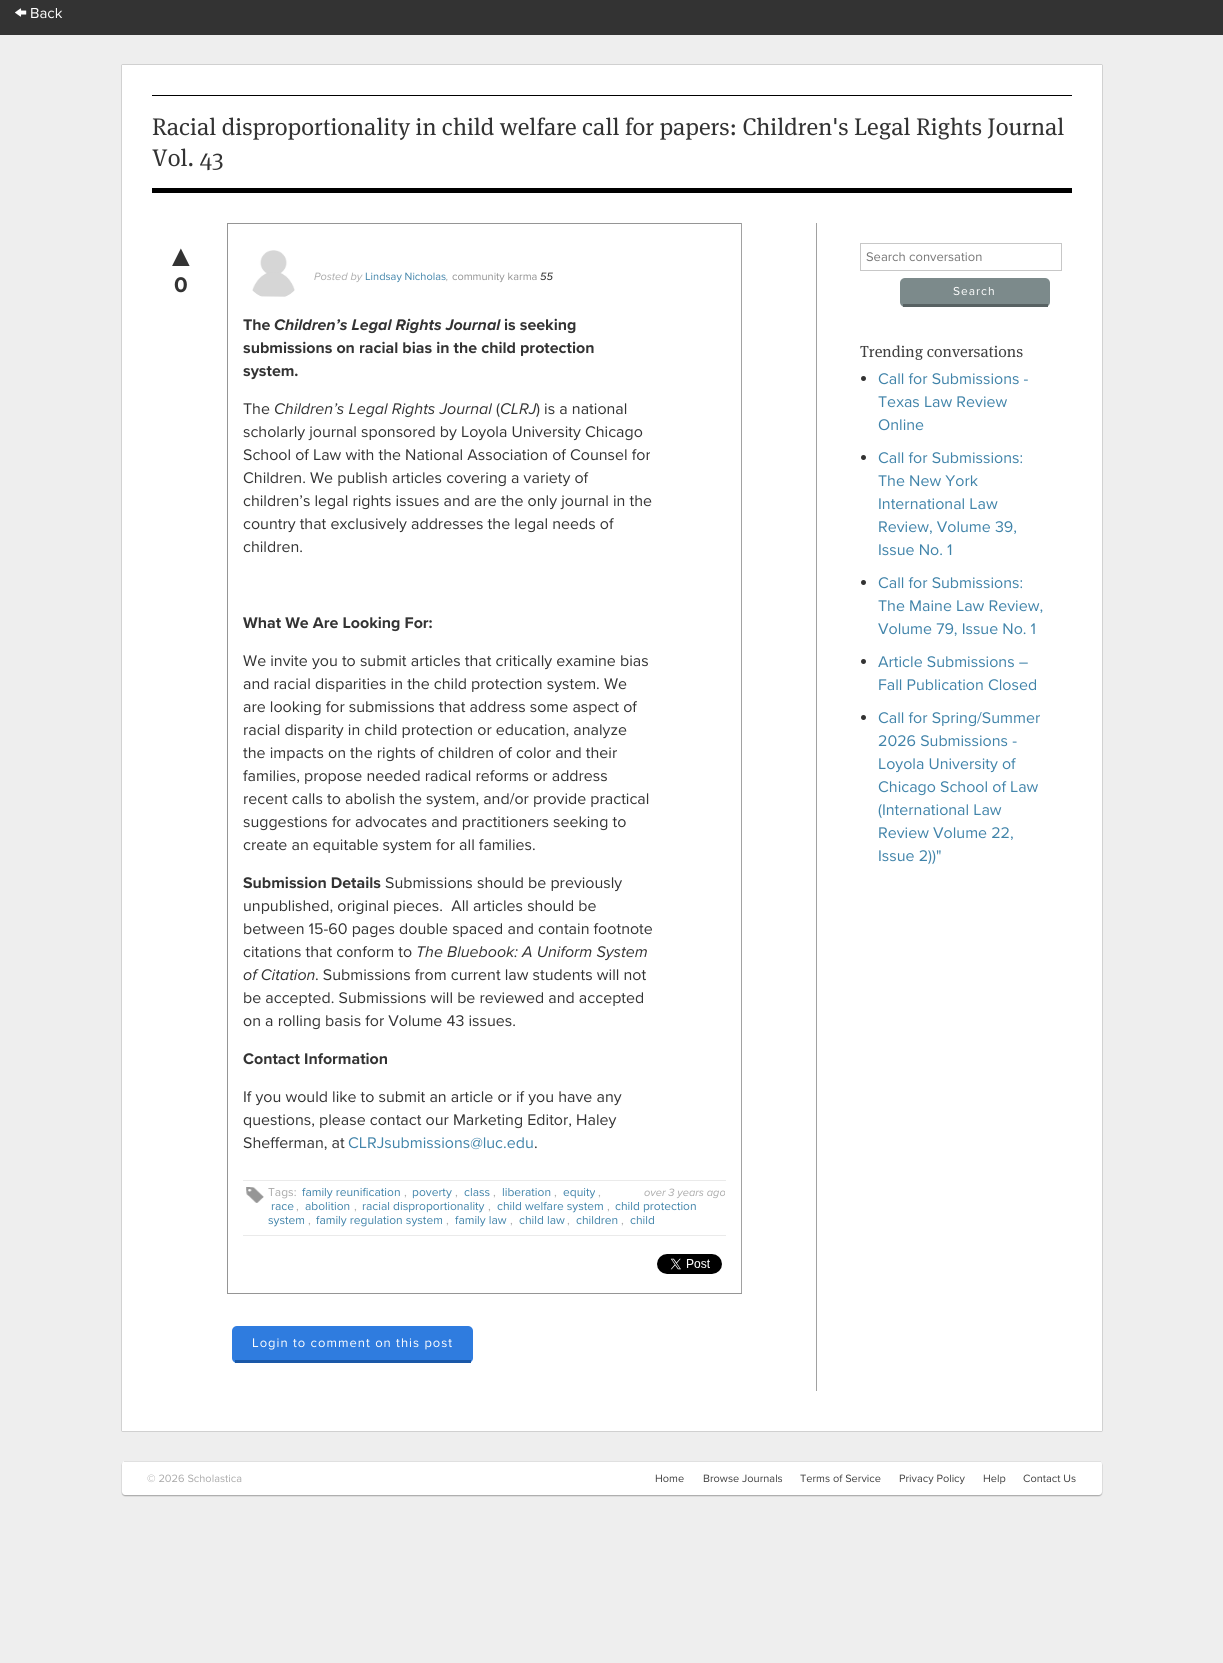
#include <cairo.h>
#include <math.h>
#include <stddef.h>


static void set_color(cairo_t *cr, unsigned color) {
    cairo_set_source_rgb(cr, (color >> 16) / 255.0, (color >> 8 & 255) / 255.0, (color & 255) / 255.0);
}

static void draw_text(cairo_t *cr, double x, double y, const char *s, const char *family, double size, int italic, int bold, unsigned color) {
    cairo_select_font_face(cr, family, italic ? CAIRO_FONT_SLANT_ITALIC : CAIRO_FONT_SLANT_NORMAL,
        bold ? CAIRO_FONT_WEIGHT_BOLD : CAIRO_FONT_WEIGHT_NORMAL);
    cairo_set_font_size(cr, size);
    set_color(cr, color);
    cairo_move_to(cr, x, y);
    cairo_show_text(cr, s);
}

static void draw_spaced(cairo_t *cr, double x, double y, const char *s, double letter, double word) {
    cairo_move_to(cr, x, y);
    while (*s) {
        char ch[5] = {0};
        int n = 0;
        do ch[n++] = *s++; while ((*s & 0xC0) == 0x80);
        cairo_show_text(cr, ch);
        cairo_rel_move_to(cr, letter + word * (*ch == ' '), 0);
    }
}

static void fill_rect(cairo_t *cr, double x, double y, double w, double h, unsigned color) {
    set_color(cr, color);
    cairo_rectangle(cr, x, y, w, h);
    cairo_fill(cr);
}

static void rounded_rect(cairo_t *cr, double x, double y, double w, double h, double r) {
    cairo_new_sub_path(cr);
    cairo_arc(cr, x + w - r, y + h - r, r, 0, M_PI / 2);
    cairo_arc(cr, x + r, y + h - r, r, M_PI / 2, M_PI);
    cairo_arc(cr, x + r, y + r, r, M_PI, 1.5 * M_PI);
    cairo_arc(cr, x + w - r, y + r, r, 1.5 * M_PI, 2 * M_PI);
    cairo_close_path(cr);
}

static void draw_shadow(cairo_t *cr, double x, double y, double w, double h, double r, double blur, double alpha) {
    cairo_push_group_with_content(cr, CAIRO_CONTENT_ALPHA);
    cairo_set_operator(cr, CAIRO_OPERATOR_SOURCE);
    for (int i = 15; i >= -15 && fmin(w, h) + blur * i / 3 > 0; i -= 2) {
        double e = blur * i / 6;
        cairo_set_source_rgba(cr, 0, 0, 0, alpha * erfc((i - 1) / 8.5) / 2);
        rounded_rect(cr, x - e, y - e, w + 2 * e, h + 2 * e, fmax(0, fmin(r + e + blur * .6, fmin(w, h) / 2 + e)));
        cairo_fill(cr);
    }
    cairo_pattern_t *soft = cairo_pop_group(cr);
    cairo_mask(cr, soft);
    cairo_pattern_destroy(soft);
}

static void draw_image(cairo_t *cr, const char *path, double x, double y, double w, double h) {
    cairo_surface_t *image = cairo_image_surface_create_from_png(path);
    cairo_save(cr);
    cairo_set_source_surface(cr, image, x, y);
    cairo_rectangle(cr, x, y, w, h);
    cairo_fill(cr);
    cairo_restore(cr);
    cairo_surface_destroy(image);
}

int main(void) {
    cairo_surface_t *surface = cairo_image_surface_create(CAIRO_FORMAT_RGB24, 1223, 1663);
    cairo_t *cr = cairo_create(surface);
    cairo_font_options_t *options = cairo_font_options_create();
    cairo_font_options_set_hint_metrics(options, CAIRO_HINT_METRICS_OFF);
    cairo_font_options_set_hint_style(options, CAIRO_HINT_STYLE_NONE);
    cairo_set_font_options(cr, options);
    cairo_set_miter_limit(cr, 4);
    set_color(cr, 0xEEEEEE);
    cairo_paint(cr);
    fill_rect(cr, 0, 0, 1223, 35, 0x333333);
    draw_image(cr, "assets/img1.png", 15, 8, 12, 9);
    draw_text(cr, 30, 18, "Back", "Proxima Nova", 15, 0, 0, 0xFFFFFF);
    set_color(cr, 0x000000);
    draw_shadow(cr, 122, 65, 980, 1366, 0, 0.5, 0.5);
    fill_rect(cr, 122, 65, 980, 1366, 0xFFFFFF);
    fill_rect(cr, 152, 95, 920, 1, 0x000000);
    fill_rect(cr, 152, 188, 920, 5, 0x000000);
    draw_text(cr, 152, 135, "Racial disproportionality in child welfare call for papers: Children's Legal Rights Journal", "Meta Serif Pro", 24, 0, 0, 0x333333);
    draw_text(cr, 152, 166, "Vol. 43", "Meta Serif Pro", 24, 0, 0, 0x333333);
    fill_rect(cr, 816, 223, 1, 1168, 0xA1A1A1);
    fill_rect(cr, 227, 223, 515, 1, 0x959595);
    fill_rect(cr, 741, 223, 1, 1071, 0xA1A1A1);
    fill_rect(cr, 227, 1293, 515, 1, 0x959595);
    fill_rect(cr, 227, 223, 1, 1071, 0x959595);
    draw_text(cr, 166, 266, "▲", "Liberation Sans", 30, 0, 1, 0x333333);
    draw_text(cr, 174, 292, "0", "Proxima Nova", 22, 0, 1, 0x333333);
    draw_image(cr, "assets/img2.png", 252, 250, 43, 47);
    draw_text(cr, 314, 280, "Posted by", "Proxima Nova", 11, 1, 0, 0xAAAAAA);
    draw_text(cr, 365, 280, "Lindsay Nicholas", "Proxima Nova", 11, 0, 0, 0x4083A9);
    draw_text(cr, 446, 280, ",", "Proxima Nova", 11, 1, 0, 0xAAAAAA);
    draw_text(cr, 452, 280, "community karma", "Proxima Nova", 11, 0, 0, 0x919191);
    draw_text(cr, 540, 280, "55", "Proxima Nova", 11, 1, 0, 0x222222);
    draw_text(cr, 243, 330, "The", "Proxima Nova", 16, 0, 1, 0x333333);
    draw_text(cr, 274, 330, "Children’s Legal Rights Journal", "Proxima Nova", 16, 1, 1, 0x333333);
    draw_text(cr, 504, 330, "is seeking", "Proxima Nova", 16, 0, 1, 0x333333);
    draw_text(cr, 243, 353, "submissions on racial bias in the child protection", "Proxima Nova", 16, 0, 1, 0x333333);
    draw_text(cr, 243, 376, "system.", "Proxima Nova", 16, 0, 1, 0x333333);
    draw_text(cr, 243, 414, "The", "Proxima Nova", 16, 0, 0, 0x333333);
    draw_text(cr, 274, 414, "Children’s Legal Rights Journal", "Proxima Nova", 16, 1, 0, 0x333333);
    draw_text(cr, 496, 414, "(", "Proxima Nova", 16, 0, 0, 0x333333);
    draw_text(cr, 500, 414, "CLRJ", "Proxima Nova", 16, 1, 0, 0x333333);
    draw_text(cr, 536, 414, ") is a national", "Proxima Nova", 16, 0, 0, 0x333333);
    draw_text(cr, 243, 437, "scholarly journal sponsored by Loyola University Chicago", "Proxima Nova", 16, 0, 0, 0x333333);
    draw_text(cr, 243, 460, "School of Law with the National Association of Counsel for", "Proxima Nova", 16, 0, 0, 0x333333);
    draw_text(cr, 243, 483, "Children. We publish articles covering a variety of", "Proxima Nova", 16, 0, 0, 0x333333);
    draw_text(cr, 243, 506, "children’s legal rights issues and are the only journal in the", "Proxima Nova", 16, 0, 0, 0x333333);
    draw_text(cr, 243, 529, "country that exclusively addresses the legal needs of", "Proxima Nova", 16, 0, 0, 0x333333);
    draw_text(cr, 243, 552, "children.", "Proxima Nova", 16, 0, 0, 0x333333);
    draw_text(cr, 243, 628, "What We Are Looking For:", "Proxima Nova", 16, 0, 1, 0x333333);
    draw_text(cr, 243, 666, "We invite you to submit articles that critically examine bias", "Proxima Nova", 16, 0, 0, 0x333333);
    draw_text(cr, 243, 689, "and racial disparities in the child protection system. We", "Proxima Nova", 16, 0, 0, 0x333333);
    draw_text(cr, 243, 712, "are looking for submissions that address some aspect of", "Proxima Nova", 16, 0, 0, 0x333333);
    draw_text(cr, 243, 735, "racial disparity in child protection or education, analyze", "Proxima Nova", 16, 0, 0, 0x333333);
    draw_text(cr, 243, 758, "the impacts on the rights of children of color and their", "Proxima Nova", 16, 0, 0, 0x333333);
    draw_text(cr, 243, 781, "families, propose needed radical reforms or address", "Proxima Nova", 16, 0, 0, 0x333333);
    draw_text(cr, 243, 804, "recent calls to abolish the system, and/or provide practical", "Proxima Nova", 16, 0, 0, 0x333333);
    draw_text(cr, 243, 827, "suggestions for advocates and practitioners seeking to", "Proxima Nova", 16, 0, 0, 0x333333);
    draw_text(cr, 243, 850, "create an equitable system for all families.", "Proxima Nova", 16, 0, 0, 0x333333);
    draw_text(cr, 243, 888, "Submission Details", "Proxima Nova", 16, 0, 1, 0x333333);
    draw_text(cr, 385, 888, "Submissions should be previously", "Proxima Nova", 16, 0, 0, 0x333333);
    draw_text(cr, 243, 911, "unpublished, original pieces.  All articles should be", "Proxima Nova", 16, 0, 0, 0x333333);
    draw_text(cr, 243, 934, "between 15-60 pages double spaced and contain footnote", "Proxima Nova", 16, 0, 0, 0x333333);
    draw_text(cr, 243, 957, "citations that conform to", "Proxima Nova", 16, 0, 0, 0x333333);
    draw_text(cr, 416, 957, "The Bluebook: A Uniform System", "Proxima Nova", 16, 1, 0, 0x333333);
    draw_text(cr, 243, 980, "of Citation", "Proxima Nova", 16, 1, 0, 0x333333);
    draw_text(cr, 315, 980, ". Submissions from current law students will not", "Proxima Nova", 16, 0, 0, 0x333333);
    draw_text(cr, 243, 1003, "be accepted. Submissions will be reviewed and accepted", "Proxima Nova", 16, 0, 0, 0x333333);
    draw_text(cr, 243, 1026, "on a rolling basis for Volume 43 issues.", "Proxima Nova", 16, 0, 0, 0x333333);
    draw_text(cr, 243, 1064, "Contact Information", "Proxima Nova", 16, 0, 1, 0x333333);
    draw_text(cr, 243, 1102, "If you would like to submit an article or if you have any", "Proxima Nova", 16, 0, 0, 0x333333);
    draw_text(cr, 243, 1125, "questions, please contact our Marketing Editor, Haley", "Proxima Nova", 16, 0, 0, 0x333333);
    draw_text(cr, 243, 1148, "Shefferman, at", "Proxima Nova", 16, 0, 0, 0x333333);
    draw_text(cr, 348, 1148, "CLRJsubmissions@luc.edu", "Proxima Nova", 16, 0, 0, 0x4083A9);
    draw_text(cr, 534, 1148, ".", "Proxima Nova", 16, 0, 0, 0x333333);
    draw_image(cr, "assets/img3.png", 246, 1187, 18, 16);
    fill_rect(cr, 243, 1180, 483, 1, 0xEAEAEA);
    fill_rect(cr, 243, 1235, 483, 1, 0xEAEAEA);
    draw_text(cr, 268, 1196, "Tags:", "Proxima Nova", 12, 0, 0, 0xAAAAAA);
    draw_text(cr, 302, 1196, "family reunification", "Proxima Nova", 12, 0, 0, 0x4083A9);
    draw_text(cr, 404, 1196, ",", "Proxima Nova", 12, 0, 0, 0xAAAAAA);
    draw_text(cr, 412, 1196, "poverty", "Proxima Nova", 12, 0, 0, 0x4083A9);
    draw_text(cr, 455, 1196, ",", "Proxima Nova", 12, 0, 0, 0xAAAAAA);
    draw_text(cr, 464, 1196, "class", "Proxima Nova", 12, 0, 0, 0x4083A9);
    draw_text(cr, 493, 1196, ",", "Proxima Nova", 12, 0, 0, 0xAAAAAA);
    draw_text(cr, 502, 1196, "liberation", "Proxima Nova", 12, 0, 0, 0x4083A9);
    draw_text(cr, 554, 1196, ",", "Proxima Nova", 12, 0, 0, 0xAAAAAA);
    draw_text(cr, 563, 1196, "equity", "Proxima Nova", 12, 0, 0, 0x4083A9);
    draw_text(cr, 598, 1196, ",", "Proxima Nova", 12, 0, 0, 0xAAAAAA);
    draw_text(cr, 271, 1210, "race", "Proxima Nova", 12, 0, 0, 0x4083A9);
    draw_text(cr, 296, 1210, ",", "Proxima Nova", 12, 0, 0, 0xAAAAAA);
    draw_text(cr, 305, 1210, "abolition", "Proxima Nova", 12, 0, 0, 0x4083A9);
    draw_text(cr, 354, 1210, ",", "Proxima Nova", 12, 0, 0, 0xAAAAAA);
    draw_text(cr, 362, 1210, "racial disproportionality", "Proxima Nova", 12, 0, 0, 0x4083A9);
    draw_text(cr, 488, 1210, ",", "Proxima Nova", 12, 0, 0, 0xAAAAAA);
    draw_text(cr, 497, 1210, "child welfare system", "Proxima Nova", 12, 0, 0, 0x4083A9);
    draw_text(cr, 607, 1210, ",", "Proxima Nova", 12, 0, 0, 0xAAAAAA);
    draw_text(cr, 615, 1210, "child protection", "Proxima Nova", 12, 0, 0, 0x4083A9);
    draw_text(cr, 268, 1224, "system", "Proxima Nova", 12, 0, 0, 0x4083A9);
    draw_text(cr, 308, 1224, ",", "Proxima Nova", 12, 0, 0, 0xAAAAAA);
    draw_text(cr, 316, 1224, "family regulation system", "Proxima Nova", 12, 0, 0, 0x4083A9);
    draw_text(cr, 446, 1224, ",", "Proxima Nova", 12, 0, 0, 0xAAAAAA);
    draw_text(cr, 455, 1224, "family law", "Proxima Nova", 12, 0, 0, 0x4083A9);
    draw_text(cr, 510, 1224, ",", "Proxima Nova", 12, 0, 0, 0xAAAAAA);
    draw_text(cr, 519, 1224, "child law", "Proxima Nova", 12, 0, 0, 0x4083A9);
    draw_text(cr, 567, 1224, ",", "Proxima Nova", 12, 0, 0, 0xAAAAAA);
    draw_text(cr, 576, 1224, "children", "Proxima Nova", 12, 0, 0, 0x4083A9);
    draw_text(cr, 621, 1224, ",", "Proxima Nova", 12, 0, 0, 0xAAAAAA);
    draw_text(cr, 630, 1224, "child", "Proxima Nova", 12, 0, 0, 0x4083A9);
    draw_text(cr, 644, 1196, "over 3 years ago", "Proxima Nova", 11, 1, 0, 0xAAAAAA);
    draw_image(cr, "assets/img4.png", 657, 1254, 65, 20);
    set_color(cr, 0x2F7CDF);
    rounded_rect(cr, 232, 1326, 241, 37, 5);
    cairo_fill(cr);
    cairo_select_font_face(cr, "Proxima Nova", CAIRO_FONT_SLANT_NORMAL, CAIRO_FONT_WEIGHT_NORMAL);
    cairo_set_font_size(cr, 13);
    set_color(cr, 0xFFFFFF);
    draw_spaced(cr, 252, 1347, "Login to comment on this post", 1, 0);
    fill_rect(cr, 235, 1360, 236, 3, 0x1A58A8);
    cairo_rectangle(cr, 860.5, 243.5, 201, 27);
    set_color(cr, 0xC7C7C7);
    cairo_set_line_width(cr, 1);
    cairo_stroke(cr);
    draw_text(cr, 866, 261, "Search conversation", "Proxima Nova", 13, 0, 0, 0x757575);
    set_color(cr, 0x7C8A8B);
    rounded_rect(cr, 900, 278, 150, 29, 5);
    cairo_fill(cr);
    fill_rect(cr, 903, 304, 145, 3, 0x586263);
    cairo_set_font_size(cr, 12);
    set_color(cr, 0xFFFFFF);
    draw_spaced(cr, 953, 295, "Search", 1, 0);
    draw_text(cr, 860, 357, "Trending conversations", "Meta Serif Pro", 16, 0, 0, 0x404040);
    set_color(cr, 0x333333);
    cairo_new_path(cr);
    cairo_arc(cr, 863.5, 378.5, 2.5, 0, 2 * M_PI);
    cairo_fill(cr);
    draw_text(cr, 878, 384, "Call for Submissions -", "Proxima Nova", 16, 0, 0, 0x4083A9);
    draw_text(cr, 878, 407, "Texas Law Review", "Proxima Nova", 16, 0, 0, 0x4083A9);
    draw_text(cr, 878, 430, "Online", "Proxima Nova", 16, 0, 0, 0x4083A9);
    set_color(cr, 0x333333);
    cairo_new_path(cr);
    cairo_arc(cr, 863.5, 457.5, 2.5, 0, 2 * M_PI);
    cairo_fill(cr);
    draw_text(cr, 878, 463, "Call for Submissions:", "Proxima Nova", 16, 0, 0, 0x4083A9);
    draw_text(cr, 878, 486, "The New York", "Proxima Nova", 16, 0, 0, 0x4083A9);
    draw_text(cr, 878, 509, "International Law", "Proxima Nova", 16, 0, 0, 0x4083A9);
    draw_text(cr, 878, 532, "Review, Volume 39,", "Proxima Nova", 16, 0, 0, 0x4083A9);
    draw_text(cr, 878, 555, "Issue No. 1", "Proxima Nova", 16, 0, 0, 0x4083A9);
    set_color(cr, 0x333333);
    cairo_new_path(cr);
    cairo_arc(cr, 863.5, 582.5, 2.5, 0, 2 * M_PI);
    cairo_fill(cr);
    draw_text(cr, 878, 588, "Call for Submissions:", "Proxima Nova", 16, 0, 0, 0x4083A9);
    draw_text(cr, 878, 611, "The Maine Law Review,", "Proxima Nova", 16, 0, 0, 0x4083A9);
    draw_text(cr, 878, 634, "Volume 79, Issue No. 1", "Proxima Nova", 16, 0, 0, 0x4083A9);
    set_color(cr, 0x333333);
    cairo_new_path(cr);
    cairo_arc(cr, 863.5, 661.5, 2.5, 0, 2 * M_PI);
    cairo_fill(cr);
    draw_text(cr, 878, 667, "Article Submissions –", "Proxima Nova", 16, 0, 0, 0x4083A9);
    draw_text(cr, 878, 690, "Fall Publication Closed", "Proxima Nova", 16, 0, 0, 0x4083A9);
    set_color(cr, 0x333333);
    cairo_new_path(cr);
    cairo_arc(cr, 863.5, 717.5, 2.5, 0, 2 * M_PI);
    cairo_fill(cr);
    draw_text(cr, 878, 723, "Call for Spring/Summer", "Proxima Nova", 16, 0, 0, 0x4083A9);
    draw_text(cr, 878, 746, "2026 Submissions -", "Proxima Nova", 16, 0, 0, 0x4083A9);
    draw_text(cr, 878, 769, "Loyola University of", "Proxima Nova", 16, 0, 0, 0x4083A9);
    draw_text(cr, 878, 792, "Chicago School of Law", "Proxima Nova", 16, 0, 0, 0x4083A9);
    draw_text(cr, 878, 815, "(International Law", "Proxima Nova", 16, 0, 0, 0x4083A9);
    draw_text(cr, 878, 838, "Review Volume 22,", "Proxima Nova", 16, 0, 0, 0x4083A9);
    draw_text(cr, 878, 861, "Issue 2))\"", "Proxima Nova", 16, 0, 0, 0x4083A9);
    set_color(cr, 0x000000);
    draw_shadow(cr, 122, 1462, 980, 34, 3, 0.5, 0.3);
    set_color(cr, 0xFFFFFF);
    rounded_rect(cr, 122, 1461, 980, 34, 3);
    cairo_fill(cr);
    fill_rect(cr, 124, 1461, 977, 1, 0xE0E0E0);
    draw_text(cr, 147, 1482, "© 2026 Scholastica", "Proxima Nova", 11, 0, 0, 0xAAAAAA);
    draw_text(cr, 655, 1482, "Home", "Proxima Nova", 11, 0, 0, 0x404040);
    draw_text(cr, 703, 1482, "Browse Journals", "Proxima Nova", 11, 0, 0, 0x404040);
    draw_text(cr, 800, 1482, "Terms of Service", "Proxima Nova", 11, 0, 0, 0x404040);
    draw_text(cr, 899, 1482, "Privacy Policy", "Proxima Nova", 11, 0, 0, 0x404040);
    draw_text(cr, 983, 1482, "Help", "Proxima Nova", 11, 0, 0, 0x404040);
    draw_text(cr, 1023, 1482, "Contact Us", "Proxima Nova", 11, 0, 0, 0x404040);
    cairo_surface_write_to_png(surface, "output.png");
    cairo_font_options_destroy(options);
    cairo_destroy(cr);
    cairo_surface_destroy(surface);
    return 0;
}
